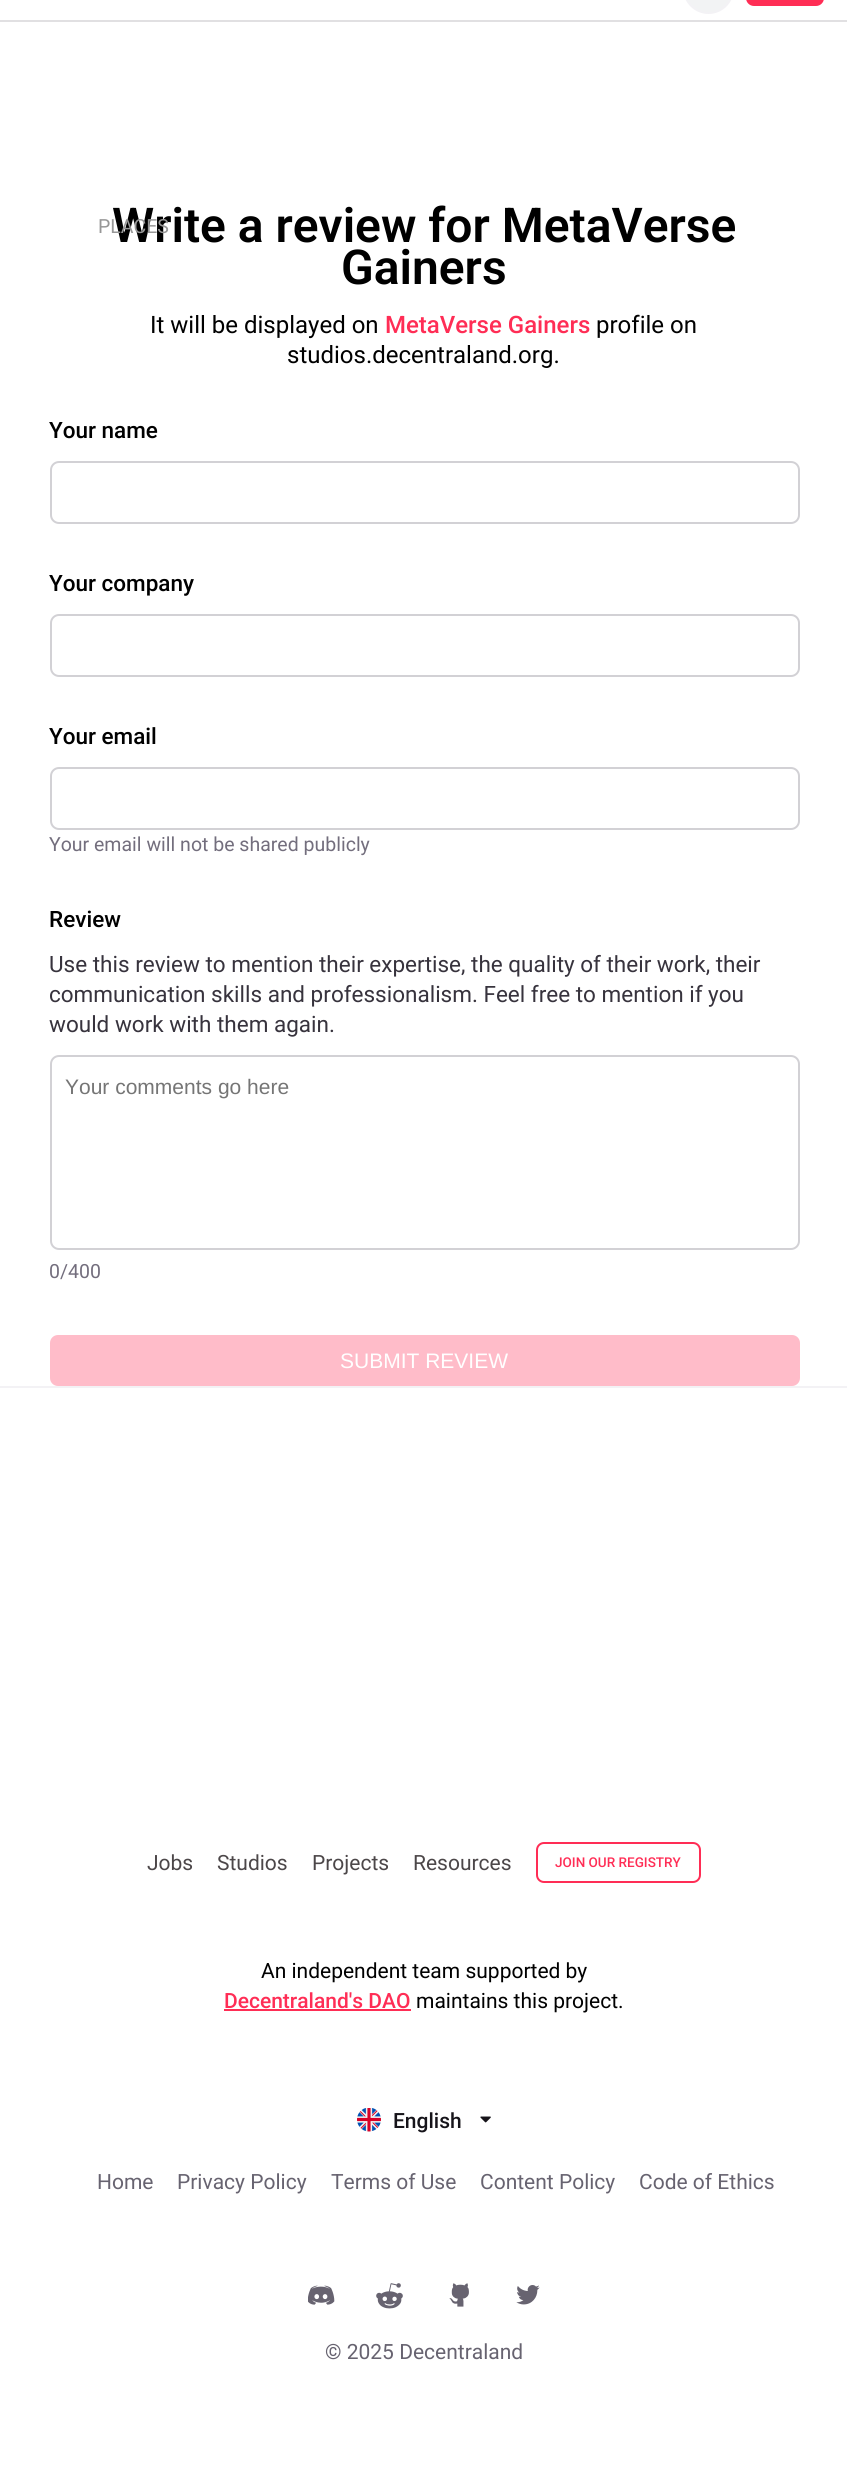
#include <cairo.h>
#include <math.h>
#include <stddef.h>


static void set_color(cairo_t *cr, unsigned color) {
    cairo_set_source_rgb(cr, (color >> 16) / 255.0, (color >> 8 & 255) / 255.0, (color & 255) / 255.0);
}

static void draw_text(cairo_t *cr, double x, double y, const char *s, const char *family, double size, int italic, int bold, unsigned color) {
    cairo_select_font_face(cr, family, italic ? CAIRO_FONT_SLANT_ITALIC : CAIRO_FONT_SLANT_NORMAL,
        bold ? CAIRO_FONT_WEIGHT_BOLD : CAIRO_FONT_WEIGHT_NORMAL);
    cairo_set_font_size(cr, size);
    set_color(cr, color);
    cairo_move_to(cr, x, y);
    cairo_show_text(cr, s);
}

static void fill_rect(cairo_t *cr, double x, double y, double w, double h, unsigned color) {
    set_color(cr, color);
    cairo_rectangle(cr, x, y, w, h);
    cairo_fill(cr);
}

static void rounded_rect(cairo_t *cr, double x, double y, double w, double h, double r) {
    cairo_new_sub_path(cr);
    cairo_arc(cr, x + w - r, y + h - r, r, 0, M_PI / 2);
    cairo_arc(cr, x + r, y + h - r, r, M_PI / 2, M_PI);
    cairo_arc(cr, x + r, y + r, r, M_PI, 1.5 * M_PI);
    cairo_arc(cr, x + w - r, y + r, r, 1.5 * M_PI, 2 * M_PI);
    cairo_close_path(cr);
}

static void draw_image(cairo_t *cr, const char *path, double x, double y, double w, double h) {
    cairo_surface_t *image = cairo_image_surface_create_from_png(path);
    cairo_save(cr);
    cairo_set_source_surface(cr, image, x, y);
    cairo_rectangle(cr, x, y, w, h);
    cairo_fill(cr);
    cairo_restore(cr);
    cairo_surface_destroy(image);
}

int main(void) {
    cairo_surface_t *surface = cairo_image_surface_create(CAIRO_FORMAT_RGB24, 847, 2485);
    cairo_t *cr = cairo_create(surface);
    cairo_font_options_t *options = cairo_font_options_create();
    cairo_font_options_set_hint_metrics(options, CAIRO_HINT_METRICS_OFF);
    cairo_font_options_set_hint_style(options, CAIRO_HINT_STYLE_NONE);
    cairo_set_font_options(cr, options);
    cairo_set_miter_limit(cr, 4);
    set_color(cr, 0xFFFFFF);
    cairo_paint(cr);
    fill_rect(cr, 0, 20, 847, 2, 0xE1E0E2);
    set_color(cr, 0xF2F3F4);
    rounded_rect(cr, 684, -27, 49, 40, 24.5);
    cairo_fill_preserve(cr);
    set_color(cr, 0xF3F2F5);
    cairo_stroke(cr);
    set_color(cr, 0xFF2D55);
    rounded_rect(cr, 746, -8, 78, 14, 8);
    cairo_fill(cr);
    draw_text(cr, 112, 242, "Write a review for MetaVerse", "Roboto SemiBold", 48, 0, 0, 0x000000);
    draw_text(cr, 341, 284, "Gainers", "Roboto SemiBold", 48, 0, 0, 0x000000);
    draw_text(cr, 150, 333, "It will be displayed on", "Roboto", 24, 0, 0, 0x000000);
    draw_text(cr, 385, 333, "MetaVerse Gainers", "Roboto Medium", 24, 0, 0, 0xFF2D55);
    draw_text(cr, 596, 333, "profile on", "Roboto", 24, 0, 0, 0x000000);
    draw_text(cr, 287, 363, "studios.decentraland.org.", "Roboto", 24, 0, 0, 0x000000);
    draw_text(cr, 49, 438, "Your name", "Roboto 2 Medium", 22.5, 0, 0, 0x000000);
    rounded_rect(cr, 51, 462, 748, 61, 8);
    set_color(cr, 0xD2D1D5);
    cairo_stroke(cr);
    draw_text(cr, 49, 591, "Your company", "Roboto 2 Medium", 22.5, 0, 0, 0x000000);
    rounded_rect(cr, 51, 615, 748, 61, 8);
    set_color(cr, 0xD2D1D5);
    cairo_stroke(cr);
    draw_text(cr, 49, 744, "Your email", "Roboto 2 Medium", 22.5, 0, 0, 0x000000);
    rounded_rect(cr, 51, 768, 748, 61, 8);
    set_color(cr, 0xD2D1D5);
    cairo_stroke(cr);
    draw_text(cr, 49, 851, "Your email will not be shared publicly", "Roboto", 19.5, 0, 0, 0x736E7D);
    draw_text(cr, 49, 927, "Review", "Roboto 2 Medium", 22.5, 0, 0, 0x000000);
    draw_text(cr, 49, 972, "Use this review to mention their expertise, the quality of their work, their", "Roboto", 22.5, 0, 0, 0x37333D);
    draw_text(cr, 49, 1002, "communication skills and professionalism. Feel free to mention if you", "Roboto", 22.5, 0, 0, 0x37333D);
    draw_text(cr, 49, 1032, "would work with them again.", "Roboto", 22.5, 0, 0, 0x37333D);
    rounded_rect(cr, 51, 1056, 748, 193, 8);
    set_color(cr, 0xD2D1D5);
    cairo_stroke(cr);
    draw_text(cr, 65, 1094, "Your comments go here", "Liberation Sans", 21, 0, 0, 0x757575);
    draw_text(cr, 49, 1278, "0/400", "Roboto", 19.5, 0, 0, 0x736E7D);
    set_color(cr, 0xFFBCC9);
    rounded_rect(cr, 50, 1335, 750, 51, 8);
    cairo_fill(cr);
    draw_text(cr, 340, 1368, "SUBMIT REVIEW", "Liberation Sans", 21, 0, 0, 0xFFFFFF);
    draw_text(cr, 98, 233, "PLACES", "Roboto", 19.5, 0, 0, 0x979797);
    fill_rect(cr, 0, 1386, 847, 2, 0xF3F2F5);
    draw_text(cr, 147, 1870, "Jobs", "Roboto", 21, 0, 0, 0x4C4749);
    draw_text(cr, 217, 1870, "Studios", "Roboto", 21, 0, 0, 0x4C4749);
    draw_text(cr, 312, 1870, "Projects", "Roboto", 21, 0, 0, 0x4C4749);
    draw_text(cr, 413, 1870, "Resources", "Roboto", 21, 0, 0, 0x4C4749);
    rounded_rect(cr, 537, 1843, 163, 39, 7);
    set_color(cr, 0xFF2D55);
    cairo_stroke(cr);
    draw_text(cr, 555, 1867, "JOIN OUR REGISTRY", "Roboto Medium", 13.5, 0, 0, 0xFF2D55);
    draw_text(cr, 261, 1978, "An independent team supported by", "Roboto", 21, 0, 0, 0x000000);
    draw_text(cr, 224, 2008, "Decentraland's DAO", "Roboto Medium", 21, 0, 0, 0xFF2D55);
    fill_rect(cr, 224, 2009, 187, 2, 0xFF2D55);
    draw_text(cr, 416, 2008, "maintains this project.", "Roboto", 21, 0, 0, 0x000000);
    draw_image(cr, "assets/img1.png", 357, 2108, 24, 24);
    draw_text(cr, 393, 2128, "English", "Roboto Medium", 21, 0, 0, 0x16141A);
    draw_image(cr, "assets/img2.png", 480, 2116, 11, 7);
    draw_text(cr, 97, 2189, "Home", "Roboto", 21, 0, 0, 0x676370);
    draw_text(cr, 177, 2189, "Privacy Policy", "Roboto", 21, 0, 0, 0x676370);
    draw_text(cr, 331, 2189, "Terms of Use", "Roboto", 21, 0, 0, 0x676370);
    draw_text(cr, 480, 2189, "Content Policy", "Roboto", 21, 0, 0, 0x676370);
    draw_text(cr, 639, 2189, "Code of Ethics", "Roboto", 21, 0, 0, 0x676370);
    draw_image(cr, "assets/img3.png", 308, 2285, 27, 20);
    draw_image(cr, "assets/img4.png", 376, 2283, 27, 26);
    draw_image(cr, "assets/img5.png", 449, 2283, 20, 24);
    draw_image(cr, "assets/img6.png", 516, 2285, 24, 20);
    draw_text(cr, 325, 2359, "© 2025 Decentraland", "Roboto", 21, 0, 0, 0x676370);
    cairo_surface_write_to_png(surface, "output.png");
    cairo_font_options_destroy(options);
    cairo_destroy(cr);
    cairo_surface_destroy(surface);
    return 0;
}
